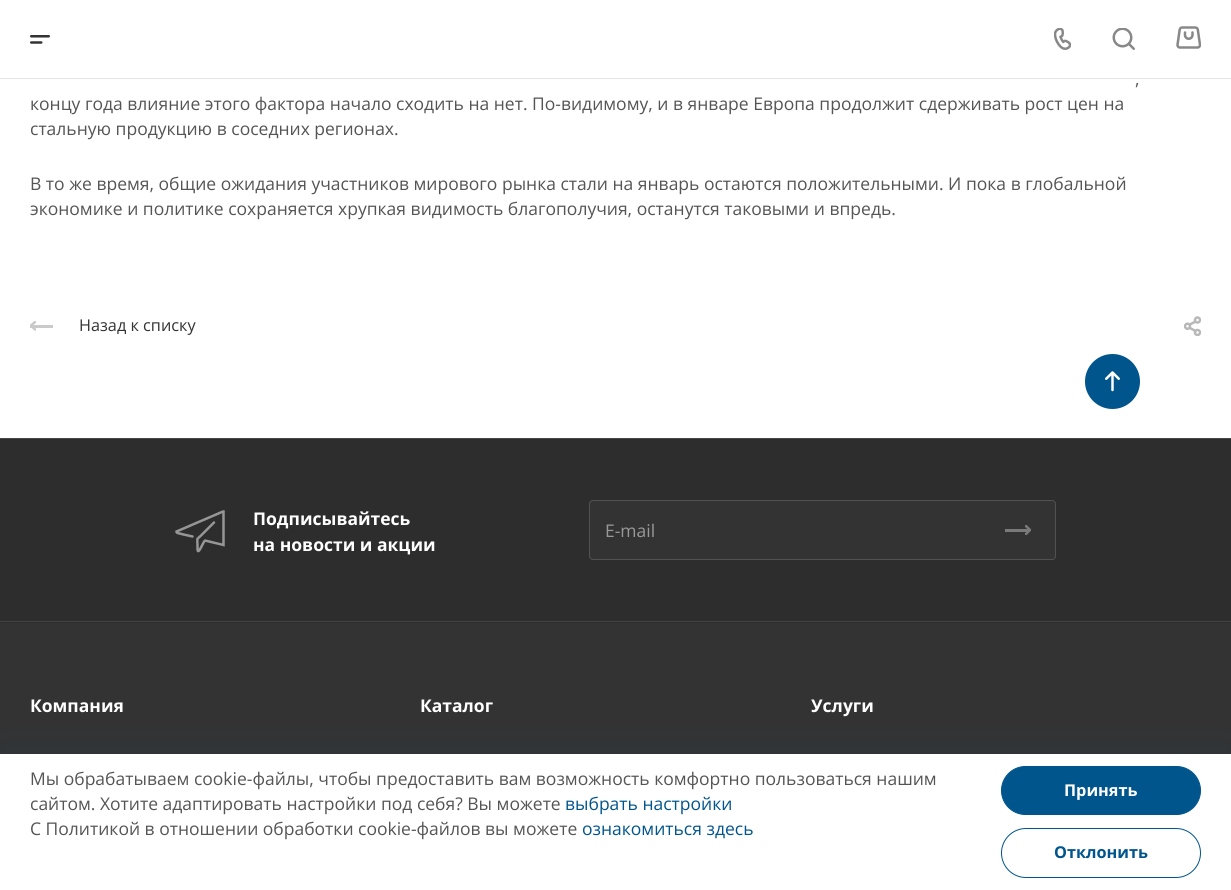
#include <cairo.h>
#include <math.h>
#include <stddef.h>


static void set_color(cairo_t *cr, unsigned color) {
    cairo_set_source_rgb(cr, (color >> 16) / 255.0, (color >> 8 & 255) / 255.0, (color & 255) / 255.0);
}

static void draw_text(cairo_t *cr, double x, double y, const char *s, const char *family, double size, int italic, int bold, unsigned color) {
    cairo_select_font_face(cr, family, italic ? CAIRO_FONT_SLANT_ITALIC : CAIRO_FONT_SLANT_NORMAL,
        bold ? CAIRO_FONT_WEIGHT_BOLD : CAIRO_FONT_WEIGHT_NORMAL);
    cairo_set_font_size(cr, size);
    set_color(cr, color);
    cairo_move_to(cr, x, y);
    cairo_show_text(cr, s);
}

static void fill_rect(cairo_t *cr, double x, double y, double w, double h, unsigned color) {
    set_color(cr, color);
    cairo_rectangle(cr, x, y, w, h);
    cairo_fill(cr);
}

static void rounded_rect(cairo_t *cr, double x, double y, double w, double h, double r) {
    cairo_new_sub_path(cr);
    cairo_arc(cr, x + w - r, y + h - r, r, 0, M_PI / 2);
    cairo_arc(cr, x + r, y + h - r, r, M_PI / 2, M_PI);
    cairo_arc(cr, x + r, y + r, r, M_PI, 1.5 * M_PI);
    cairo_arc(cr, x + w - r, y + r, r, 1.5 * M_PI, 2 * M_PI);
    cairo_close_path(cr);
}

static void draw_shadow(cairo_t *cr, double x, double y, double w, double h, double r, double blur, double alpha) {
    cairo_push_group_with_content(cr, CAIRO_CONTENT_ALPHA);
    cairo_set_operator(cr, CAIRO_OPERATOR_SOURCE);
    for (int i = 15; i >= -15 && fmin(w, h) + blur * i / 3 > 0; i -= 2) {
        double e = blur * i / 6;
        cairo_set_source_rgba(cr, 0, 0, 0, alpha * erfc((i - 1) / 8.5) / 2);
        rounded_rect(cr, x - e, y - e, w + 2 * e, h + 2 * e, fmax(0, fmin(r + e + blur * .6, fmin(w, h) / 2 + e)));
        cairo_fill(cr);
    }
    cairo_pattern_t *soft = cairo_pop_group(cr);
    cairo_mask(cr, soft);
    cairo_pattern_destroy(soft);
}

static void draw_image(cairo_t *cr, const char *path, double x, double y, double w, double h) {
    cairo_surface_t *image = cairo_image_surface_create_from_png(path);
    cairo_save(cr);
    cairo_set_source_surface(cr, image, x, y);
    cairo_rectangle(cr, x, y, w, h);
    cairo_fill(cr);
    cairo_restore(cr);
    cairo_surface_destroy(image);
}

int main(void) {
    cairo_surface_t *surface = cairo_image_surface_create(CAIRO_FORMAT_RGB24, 1231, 890);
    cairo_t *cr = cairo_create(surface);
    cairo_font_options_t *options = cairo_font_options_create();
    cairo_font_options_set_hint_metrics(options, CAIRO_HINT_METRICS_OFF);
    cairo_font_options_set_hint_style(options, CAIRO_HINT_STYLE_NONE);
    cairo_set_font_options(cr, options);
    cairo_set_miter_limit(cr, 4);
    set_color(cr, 0xFFFFFF);
    cairo_paint(cr);
    fill_rect(cr, 0, 78, 1231, 1, 0xE5E5E5);
    draw_image(cr, "assets/img1.png", 30, 35, 20, 9);
    draw_image(cr, "assets/img2.png", 1054, 28, 17, 22);
    draw_image(cr, "assets/img3.png", 1112, 28, 23, 22);
    draw_image(cr, "assets/img4.png", 1176, 26, 25, 23);
    draw_text(cr, 1135, 85, ",", "Open Sans", 17.5, 0, 0, 0x555555);
    draw_text(cr, 30, 110, "концу года влияние этого фактора начало сходить на нет. По-видимому, и в январе Европа продолжит сдерживать рост цен на", "Open Sans", 17.5, 0, 0, 0x555555);
    draw_text(cr, 30, 135, "стальную продукцию в соседних регионах.", "Open Sans", 17.5, 0, 0, 0x555555);
    draw_text(cr, 30, 190, "В то же время, общие ожидания участников мирового рынка стали на январь остаются положительными. И пока в глобальной", "Open Sans", 17.5, 0, 0, 0x555555);
    draw_text(cr, 30, 215, "экономике и политике сохраняется хрупкая видимость благополучия, останутся таковыми и впредь.", "Open Sans", 17.5, 0, 0, 0x555555);
    cairo_save(cr);
    cairo_rectangle(cr, 30, 321, 6, 10);
    cairo_clip(cr);
    cairo_new_path(cr);
    cairo_move_to(cr, 35, 329.5);
    cairo_line_to(cr, 31, 325.5);
    cairo_line_to(cr, 35, 322);
    set_color(cr, 0xCACACA);
    cairo_set_line_width(cr, 2.5);
    cairo_set_line_cap(cr, CAIRO_LINE_CAP_ROUND);
    cairo_set_line_join(cr, CAIRO_LINE_JOIN_ROUND);
    cairo_stroke(cr);
    cairo_restore(cr);
    fill_rect(cr, 30, 325, 23, 3, 0xCACACA);
    draw_text(cr, 79, 331, "Назад к списку", "Open Sans", 16.25, 0, 0, 0x333333);
    draw_image(cr, "assets/img5.png", 1184, 316, 17, 20);
    set_color(cr, 0x00558C);
    cairo_arc(cr, 1112.5, 381.5, 27.5, 0, 2 * M_PI);
    cairo_fill(cr);
    draw_image(cr, "assets/img6.png", 1105, 371, 15, 21);
    fill_rect(cr, 0, 623, 1231, 131, 0x333333);
    fill_rect(cr, 0, 438, 1231, 1, 0x474747);
    fill_rect(cr, 0, 439, 1231, 184, 0x2D2D2D);
    fill_rect(cr, 0, 621, 1231, 1, 0x424242);
    cairo_new_path(cr);
    cairo_move_to(cr, 192.5, 536.5);
    cairo_curve_to(cr, 190, 536, 176.5, 533, 176.5, 532.5);
    cairo_line_to(cr, 176.5, 531.5);
    cairo_line_to(cr, 223, 511.5);
    cairo_line_to(cr, 223.5, 511.5);
    cairo_line_to(cr, 223.5, 545);
    cairo_line_to(cr, 205, 540.5);
    cairo_curve_to(cr, 203.5, 541, 197.5, 557.5, 197.5, 548.5);
    cairo_line_to(cr, 197.5, 545);
    cairo_curve_to(cr, 197.5, 538, 196, 540, 200.5, 536);
    cairo_line_to(cr, 214, 522.5);
    set_color(cr, 0x969696);
    cairo_set_line_width(cr, 2.5);
    cairo_set_line_cap(cr, CAIRO_LINE_CAP_ROUND);
    cairo_stroke(cr);
    draw_text(cr, 253, 525, "Подписывайтесь", "Open Sans", 17.5, 0, 1, 0xFFFFFF);
    draw_text(cr, 253, 551, "на новости и акции", "Open Sans", 17.5, 0, 1, 0xFFFFFF);
    set_color(cr, 0x333333);
    rounded_rect(cr, 589.5, 500.5, 466, 59, 3.5);
    cairo_fill_preserve(cr);
    set_color(cr, 0x525252);
    cairo_set_line_width(cr, 1);
    cairo_set_line_cap(cr, CAIRO_LINE_CAP_BUTT);
    cairo_stroke(cr);
    draw_text(cr, 605, 537, "E-mail", "Open Sans", 17.5, 0, 0, 0x999999);
    cairo_save(cr);
    cairo_rectangle(cr, 1025, 525, 6, 10);
    cairo_clip(cr);
    cairo_new_path(cr);
    cairo_move_to(cr, 1026, 526);
    cairo_line_to(cr, 1030, 530);
    cairo_line_to(cr, 1026, 534);
    set_color(cr, 0x7A7A7A);
    cairo_set_line_width(cr, 2.5);
    cairo_set_line_cap(cr, CAIRO_LINE_CAP_ROUND);
    cairo_set_line_join(cr, CAIRO_LINE_JOIN_ROUND);
    cairo_stroke(cr);
    cairo_restore(cr);
    fill_rect(cr, 1005, 529, 24, 3, 0x7A7A7A);
    draw_text(cr, 30, 712, "Компания", "Open Sans", 17.5, 0, 1, 0xFFFFFF);
    draw_text(cr, 420, 712, "Каталог", "Open Sans", 17.5, 0, 1, 0xFFFFFF);
    draw_text(cr, 811, 712, "Услуги", "Open Sans", 17.5, 0, 1, 0xFFFFFF);
    set_color(cr, 0x223C50);
    draw_shadow(cr, 0, 744, 1231, 136, 0, 14.5, 0.2);
    fill_rect(cr, 0, 754, 1231, 136, 0xFFFFFF);
    draw_text(cr, 30, 785, "Мы обрабатываем cookie-файлы, чтобы предоставить вам возможность комфортно пользоваться нашим", "Open Sans", 17.5, 0, 0, 0x555555);
    draw_text(cr, 30, 810, "сайтом. Хотите адаптировать настройки под себя? Вы можете", "Open Sans", 17.5, 0, 0, 0x555555);
    draw_text(cr, 565, 810, "выбрать настройки", "Open Sans", 17.5, 0, 0, 0x00558C);
    draw_text(cr, 30, 835, "С Политикой в отношении обработки cookiе-файлов вы можете", "Open Sans", 17.5, 0, 0, 0x555555);
    draw_text(cr, 582, 835, "ознакомиться здесь", "Open Sans", 17.5, 0, 0, 0x00558C);
    rounded_rect(cr, 1001.5, 766.5, 199, 48, 24);
    cairo_fill_preserve(cr);
    cairo_stroke(cr);
    draw_text(cr, 1064, 796, "Принять", "Open Sans", 16.25, 0, 1, 0xFFFFFF);
    rounded_rect(cr, 1001.5, 828.5, 199, 49, 24.5);
    set_color(cr, 0x00558C);
    cairo_stroke(cr);
    draw_text(cr, 1054, 858, "Отклонить", "Open Sans", 16.25, 0, 1, 0x00558C);
    cairo_surface_write_to_png(surface, "output.png");
    cairo_font_options_destroy(options);
    cairo_destroy(cr);
    cairo_surface_destroy(surface);
    return 0;
}
